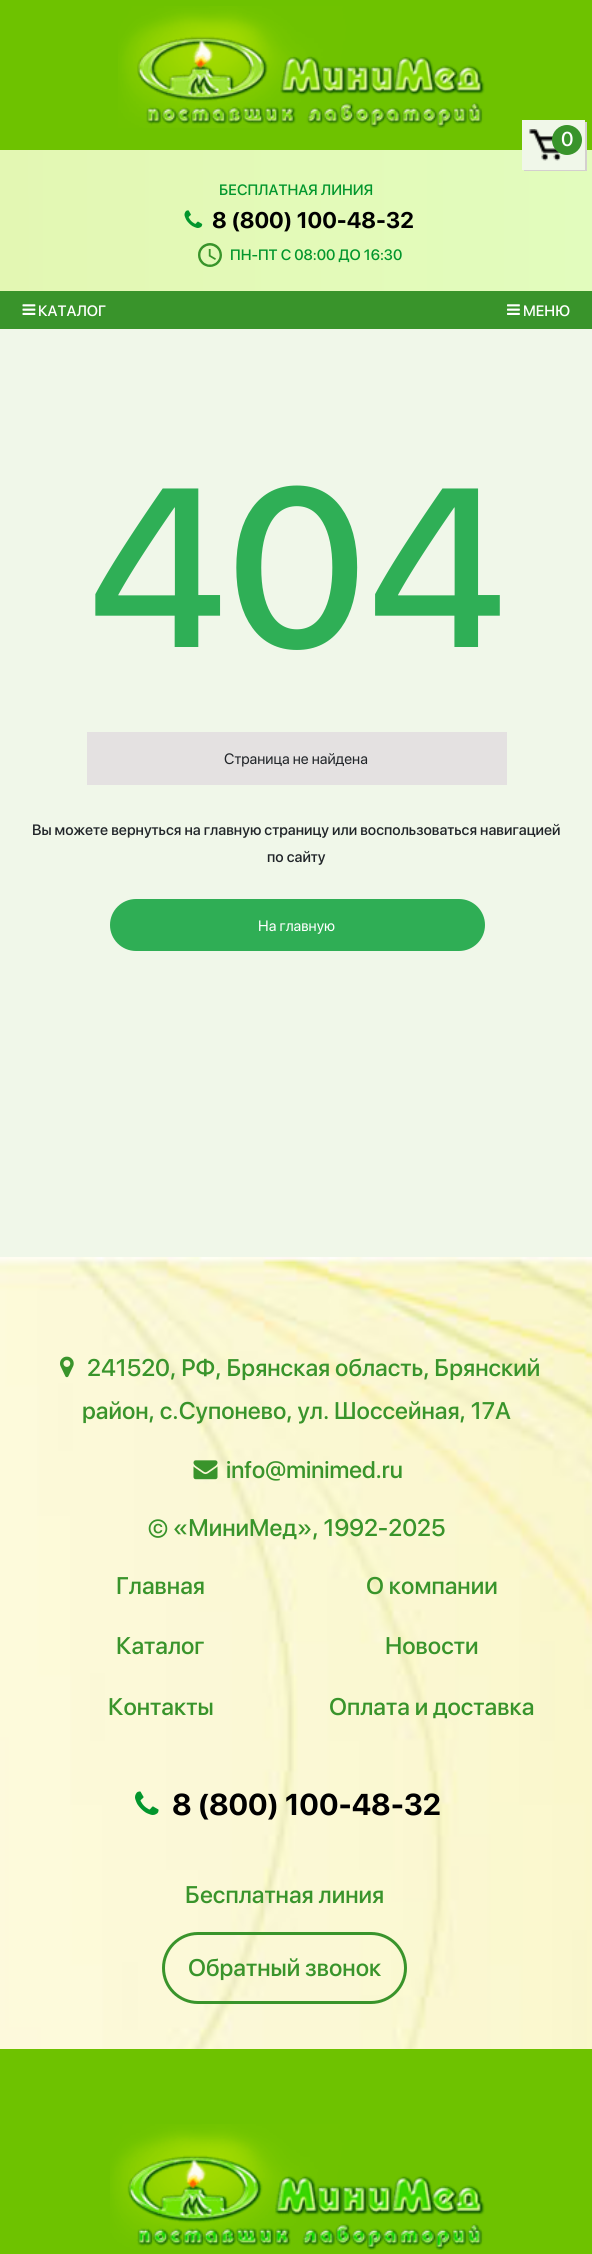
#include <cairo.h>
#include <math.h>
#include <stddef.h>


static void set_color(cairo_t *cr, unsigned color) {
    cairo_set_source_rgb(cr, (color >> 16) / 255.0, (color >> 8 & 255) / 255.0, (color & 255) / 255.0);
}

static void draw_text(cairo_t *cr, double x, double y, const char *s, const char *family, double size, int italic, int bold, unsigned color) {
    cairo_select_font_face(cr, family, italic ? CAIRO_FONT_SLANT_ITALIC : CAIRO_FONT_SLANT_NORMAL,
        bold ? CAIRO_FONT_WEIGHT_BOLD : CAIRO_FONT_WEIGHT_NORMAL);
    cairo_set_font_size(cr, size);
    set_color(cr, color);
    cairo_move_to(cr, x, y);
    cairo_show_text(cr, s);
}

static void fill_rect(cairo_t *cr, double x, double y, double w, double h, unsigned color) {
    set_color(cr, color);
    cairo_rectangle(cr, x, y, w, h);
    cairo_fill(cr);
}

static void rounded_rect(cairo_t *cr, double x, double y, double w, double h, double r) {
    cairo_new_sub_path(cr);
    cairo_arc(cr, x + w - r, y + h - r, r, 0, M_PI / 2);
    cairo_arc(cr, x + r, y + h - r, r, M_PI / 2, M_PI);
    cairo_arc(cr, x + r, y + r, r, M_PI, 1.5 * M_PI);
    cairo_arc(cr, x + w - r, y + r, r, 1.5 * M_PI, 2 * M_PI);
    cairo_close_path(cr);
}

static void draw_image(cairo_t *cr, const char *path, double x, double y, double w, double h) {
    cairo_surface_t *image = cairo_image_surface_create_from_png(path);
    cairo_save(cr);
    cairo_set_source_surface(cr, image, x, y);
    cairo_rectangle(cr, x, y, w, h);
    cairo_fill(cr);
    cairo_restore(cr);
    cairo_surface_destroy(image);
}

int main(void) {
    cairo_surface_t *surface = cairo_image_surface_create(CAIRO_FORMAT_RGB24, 592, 2254);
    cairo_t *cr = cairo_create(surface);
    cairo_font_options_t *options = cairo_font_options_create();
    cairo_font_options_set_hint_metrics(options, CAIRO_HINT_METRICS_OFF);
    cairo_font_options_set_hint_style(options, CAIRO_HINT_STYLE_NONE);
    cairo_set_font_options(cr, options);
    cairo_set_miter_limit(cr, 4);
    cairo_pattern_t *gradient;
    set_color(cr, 0xF0F7E9);
    cairo_paint(cr);
    fill_rect(cr, 0, 291, 592, 38, 0x39942B);
    gradient = cairo_pattern_create_linear(0, 146, 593, 145);
    cairo_pattern_add_color_stop_rgba(gradient, 0, 0.89, 0.969, 0.702, 1);
    cairo_pattern_add_color_stop_rgba(gradient, 0.5, 0.89, 0.98, 0.722, 1);
    cairo_pattern_add_color_stop_rgba(gradient, 1, 0.886, 0.988, 0.741, 1);
    cairo_set_source(cr, gradient);
    cairo_pattern_destroy(gradient);
    cairo_rectangle(cr, 0, 150, 592, 141);
    cairo_fill(cr);
    fill_rect(cr, 0, 0, 592, 150, 0x6EC200);
    set_color(cr, 0xD4CFCF);
    cairo_new_path(cr);
    cairo_move_to(cr, 524, 170);
    cairo_line_to(cr, 524, 171);
    cairo_line_to(cr, 587, 171);
    cairo_line_to(cr, 587, 122);
    cairo_line_to(cr, 585, 122);
    cairo_line_to(cr, 585, 170);
    cairo_close_path(cr);
    cairo_fill(cr);
    fill_rect(cr, 522, 120, 63, 50, 0xF0F7E9);
    draw_image(cr, "assets/img1.png", 529, 129, 32, 32);
    set_color(cr, 0x39942B);
    cairo_arc(cr, 567, 140, 15, 0, 2 * M_PI);
    cairo_fill(cr);
    draw_text(cr, 561, 146, "0", "SF Pro Display Medium", 20, 0, 0, 0xFFFFFF);
    draw_image(cr, "assets/img2.png", 22, 304, 14, 11);
    draw_text(cr, 38, 316, "КАТАЛОГ", "SF Pro Display Medium", 15, 0, 0, 0xFFFFFF);
    draw_image(cr, "assets/img3.png", 507, 304, 13, 11);
    draw_text(cr, 523, 316, "МЕНЮ", "SF Pro Display Medium", 15, 0, 0, 0xFFFFFF);
    draw_image(cr, "assets/img4.png", 118, 6, 367, 122);
    draw_text(cr, 219, 195, "БЕСПЛАТНАЯ ЛИНИЯ", "SF Pro Display Medium", 15, 0, 0, 0x02962D);
    draw_image(cr, "assets/img5.png", 184, 210, 19, 18);
    draw_text(cr, 212, 228, "8 (800) 100-48-32", "SF Pro Display", 22.5, 0, 1, 0x000000);
    draw_image(cr, "assets/img6.png", 198, 243, 24, 24);
    draw_text(cr, 230, 260, "ПН-ПТ С 08:00 ДО 16:30", "SF Pro Display Medium", 15, 0, 0, 0x02962D);
    draw_text(cr, 87, 647, "404", "SF Pro Display Medium", 225, 0, 0, 0x2FAF56);
    fill_rect(cr, 87, 732, 420, 53, 0xE4E1E1);
    draw_text(cr, 224, 764, "Страница не найдена", "SF Pro Display", 15, 0, 0, 0x212529);
    draw_text(cr, 32, 835, "Вы можете вернуться на главную страницу или воспользоваться навигацией", "SF Pro Display Medium", 15, 0, 0, 0x212529);
    draw_text(cr, 267, 862, "по сайту", "SF Pro Display Medium", 15, 0, 0, 0x212529);
    set_color(cr, 0x2FAE55);
    rounded_rect(cr, 110, 899, 375, 52, 26);
    cairo_fill(cr);
    draw_text(cr, 258, 931, "На главную", "SF Pro Display", 15, 0, 0, 0xFFFFFF);
    draw_image(cr, "assets/img7.png", 0, 1257, 592, 792);
    draw_image(cr, "assets/img8.png", 60, 1356, 14, 22);
    draw_text(cr, 87, 1376, "241520, РФ, Брянская область, Брянский", "SF Pro Display Medium", 24, 0, 0, 0x39942B);
    draw_text(cr, 82, 1419, "район, с.Супонево, ул. Шоссейная, 17А", "SF Pro Display Medium", 24, 0, 0, 0x39942B);
    draw_image(cr, "assets/img9.png", 193, 1460, 25, 20);
    draw_text(cr, 226, 1478, "info@minimed.ru", "SF Pro Display Medium", 24, 0, 0, 0x39942B);
    draw_text(cr, 148, 1536, "© «МиниМед», 1992-2025", "SF Pro Display Medium", 24, 0, 0, 0x39942B);
    draw_text(cr, 116, 1594, "Главная", "SF Pro Display Medium", 24, 0, 0, 0x39942B);
    draw_text(cr, 366, 1594, "О компании", "SF Pro Display Medium", 24, 0, 0, 0x39942B);
    draw_text(cr, 116, 1654, "Каталог", "SF Pro Display Medium", 24, 0, 0, 0x39942B);
    draw_text(cr, 385, 1654, "Новости", "SF Pro Display Medium", 24, 0, 0, 0x39942B);
    draw_text(cr, 108, 1715, "Контакты", "SF Pro Display Medium", 24, 0, 0, 0x39942B);
    draw_text(cr, 329, 1715, "Оплата и доставка", "SF Pro Display Medium", 24, 0, 0, 0x39942B);
    draw_image(cr, "assets/img10.png", 135, 1791, 24, 24);
    draw_text(cr, 172, 1815, "8 (800) 100-48-32", "SF Pro Display", 30, 0, 1, 0x000000);
    draw_text(cr, 185, 1903, "Бесплатная линия", "SF Pro Display Medium", 24, 0, 0, 0x39942B);
    rounded_rect(cr, 163.5, 1933.5, 242, 69, 34.5);
    cairo_set_line_width(cr, 3);
    cairo_stroke(cr);
    draw_text(cr, 188, 1976, "Обратный звонок", "SF Pro Display Medium", 24, 0, 0, 0x39942B);
    fill_rect(cr, 0, 2049, 592, 205, 0x6EC200);
    draw_image(cr, "assets/img11.png", 110, 2124, 375, 126);
    cairo_surface_write_to_png(surface, "output.png");
    cairo_font_options_destroy(options);
    cairo_destroy(cr);
    cairo_surface_destroy(surface);
    return 0;
}
